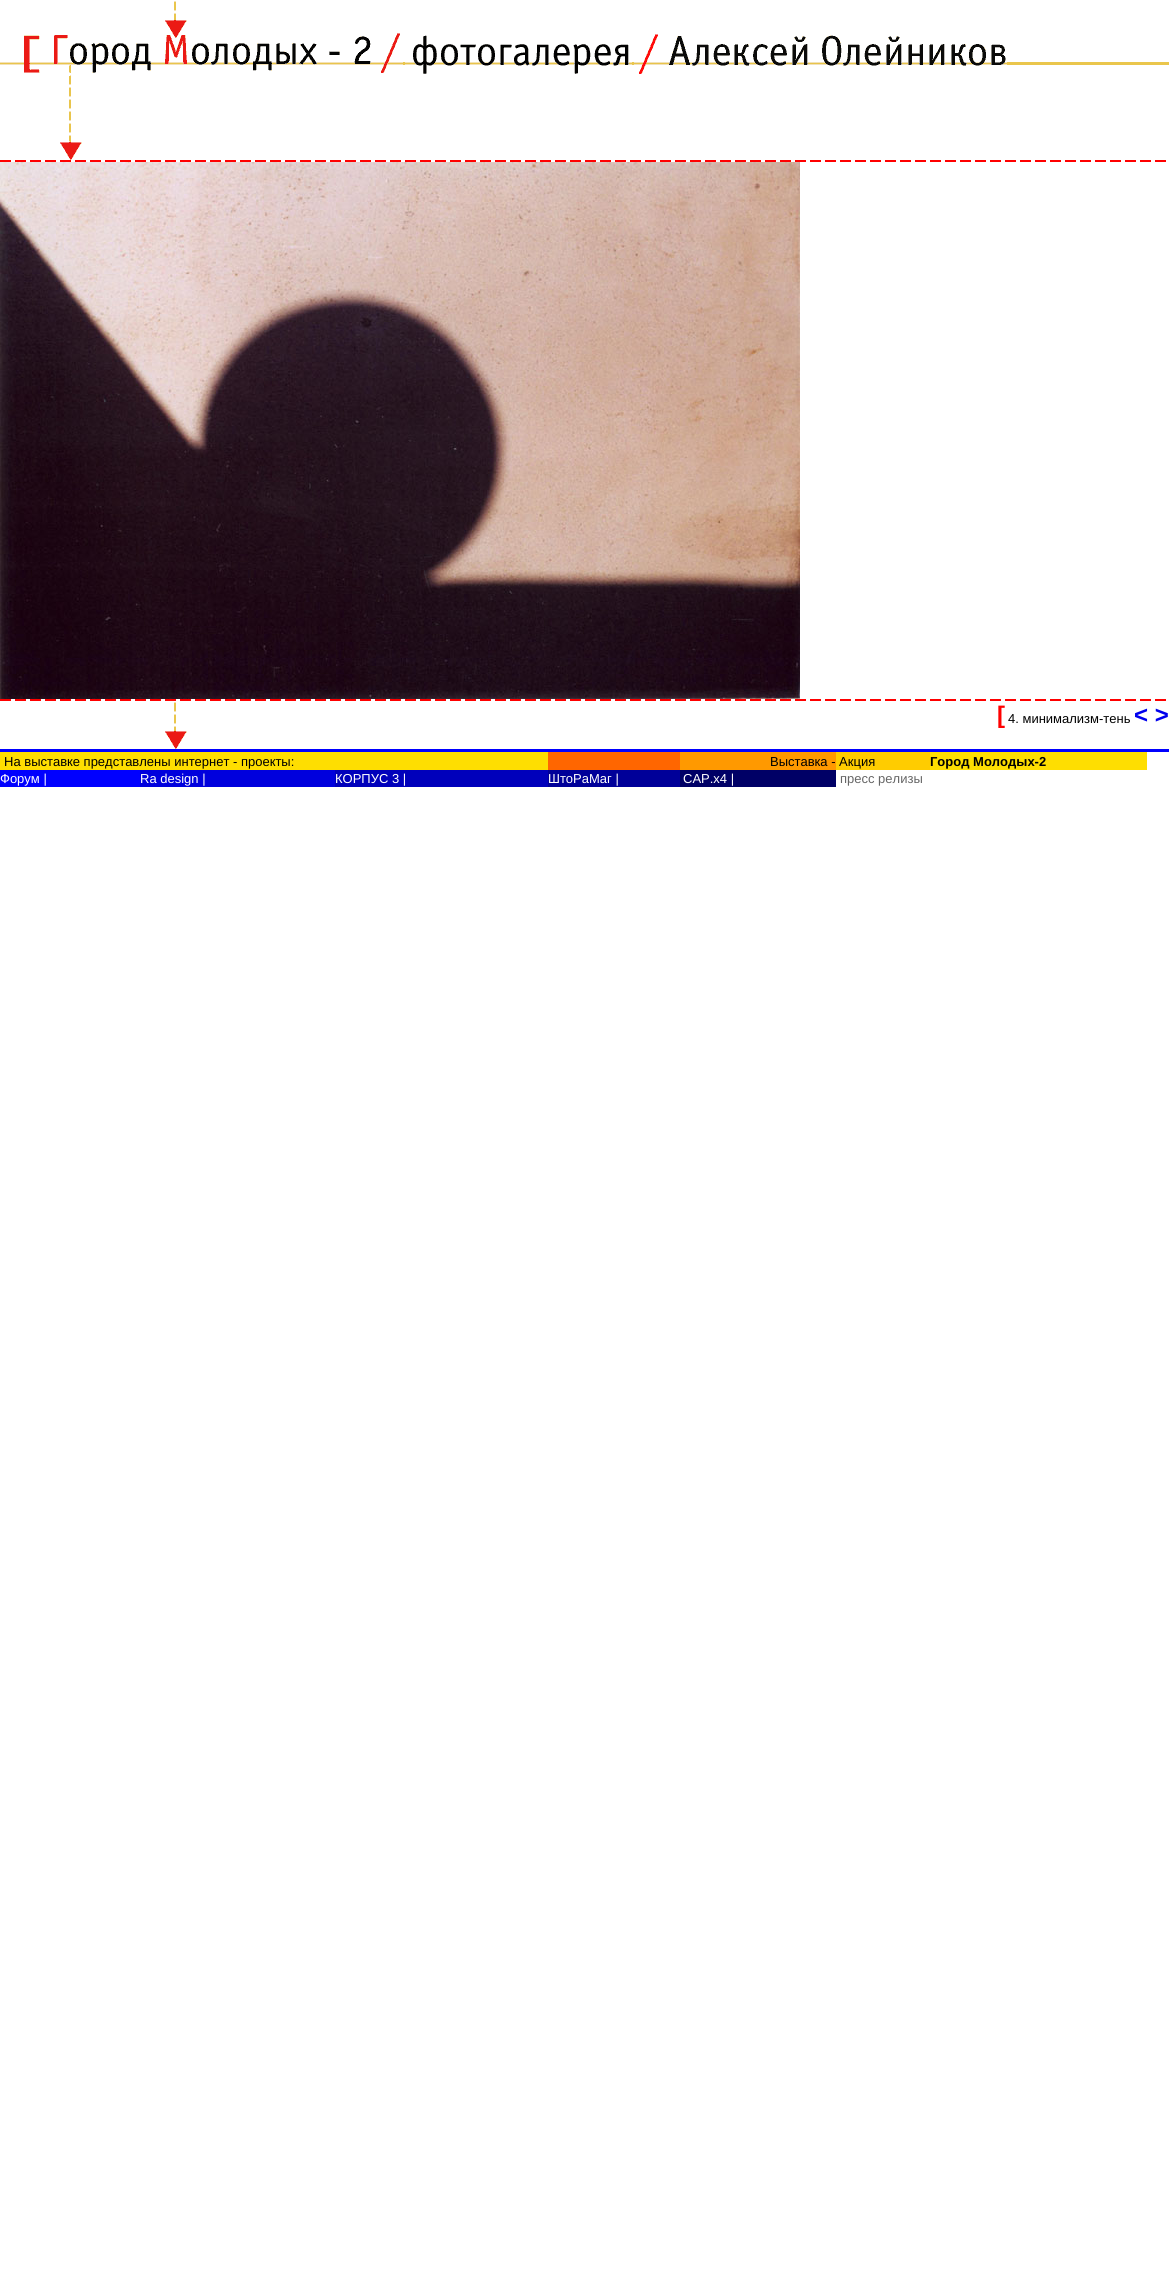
#include <cairo.h>
#include <math.h>
#include <stddef.h>


static void set_color(cairo_t *cr, unsigned color) {
    cairo_set_source_rgb(cr, (color >> 16) / 255.0, (color >> 8 & 255) / 255.0, (color & 255) / 255.0);
}

static void draw_text(cairo_t *cr, double x, double y, const char *s, const char *family, double size, int italic, int bold, unsigned color) {
    cairo_select_font_face(cr, family, italic ? CAIRO_FONT_SLANT_ITALIC : CAIRO_FONT_SLANT_NORMAL,
        bold ? CAIRO_FONT_WEIGHT_BOLD : CAIRO_FONT_WEIGHT_NORMAL);
    cairo_set_font_size(cr, size);
    set_color(cr, color);
    cairo_move_to(cr, x, y);
    cairo_show_text(cr, s);
}

static void fill_rect(cairo_t *cr, double x, double y, double w, double h, unsigned color) {
    set_color(cr, color);
    cairo_rectangle(cr, x, y, w, h);
    cairo_fill(cr);
}

static void draw_image(cairo_t *cr, const char *path, double x, double y, double w, double h) {
    cairo_surface_t *image = cairo_image_surface_create_from_png(path);
    cairo_save(cr);
    cairo_set_source_surface(cr, image, x, y);
    cairo_rectangle(cr, x, y, w, h);
    cairo_fill(cr);
    cairo_restore(cr);
    cairo_surface_destroy(image);
}

int main(void) {
    cairo_surface_t *surface = cairo_image_surface_create(CAIRO_FORMAT_RGB24, 1169, 2279);
    cairo_t *cr = cairo_create(surface);
    cairo_font_options_t *options = cairo_font_options_create();
    cairo_font_options_set_hint_metrics(options, CAIRO_HINT_METRICS_OFF);
    cairo_font_options_set_hint_style(options, CAIRO_HINT_STYLE_NONE);
    cairo_set_font_options(cr, options);
    cairo_set_miter_limit(cr, 4);
    set_color(cr, 0xFFFFFF);
    cairo_paint(cr);
    draw_image(cr, "assets/img1.png", 174, 1, 2, 17);
    fill_rect(cr, 403, 62, 766, 3, 0xEAC64C);
    draw_image(cr, "assets/img2.png", 0, 18, 403, 142);
    draw_image(cr, "assets/img3.png", 405, 35, 227, 39);
    draw_image(cr, "assets/img4.png", 634, 34, 373, 40);
    fill_rect(cr, 0, 160, 11, 2, 0xFF0000);
    draw_image(cr, "assets/img5.png", 11, 160, 1158, 2);
    draw_image(cr, "assets/img6.png", 0, 162, 800, 537);
    fill_rect(cr, 0, 699, 11, 2, 0xFF0000);
    draw_image(cr, "assets/img5.png", 11, 699, 1158, 2);
    draw_image(cr, "assets/img7.png", 174, 702, 2, 27);
    draw_text(cr, 997, 723, "[", "Liberation Sans", 24, 0, 1, 0xFF0000);
    draw_text(cr, 1008, 723, "4. минимализм-тень", "Liberation Sans", 13, 0, 0, 0x000000);
    draw_text(cr, 1134, 723, "< >", "Liberation Sans", 24, 0, 1, 0x0000EE);
    draw_image(cr, "assets/img8.png", 165, 729, 22, 20);
    fill_rect(cr, 0, 749, 1169, 3, 0x0000FF);
    fill_rect(cr, 0, 752, 548, 18, 0xFEDE01);
    draw_text(cr, 4, 766, "На выставке представлены интернет - проекты:", "Liberation Sans", 13, 0, 0, 0x000000);
    fill_rect(cr, 548, 752, 132, 18, 0xFF6600);
    fill_rect(cr, 680, 752, 156, 18, 0xFF9900);
    fill_rect(cr, 836, 752, 94, 18, 0xFFCC00);
    draw_text(cr, 770, 766, "Выставка - Акция", "Liberation Sans", 13, 0, 0, 0x000000);
    fill_rect(cr, 930, 752, 217, 18, 0xFEDE01);
    draw_text(cr, 930, 766, "Город Молодых-2", "Liberation Sans", 13, 0, 1, 0x000000);
    fill_rect(cr, 0, 770, 140, 17, 0x0000FF);
    draw_text(cr, 0, 783, "Форум |", "Liberation Sans", 13, 0, 0, 0xFFFFFF);
    fill_rect(cr, 140, 770, 195, 17, 0x0000DD);
    draw_text(cr, 140, 783, "Ra design |", "Liberation Sans", 13, 0, 0, 0xFFFFFF);
    fill_rect(cr, 335, 770, 213, 17, 0x0000BB);
    draw_text(cr, 335, 783, "КОРПУС 3 |", "Liberation Sans", 13, 0, 0, 0xFFFFFF);
    fill_rect(cr, 548, 770, 132, 17, 0x000099);
    draw_text(cr, 548, 783, "ШтоРаМаг |", "Liberation Sans", 13, 0, 0, 0xFFFFFF);
    fill_rect(cr, 680, 770, 156, 17, 0x000066);
    draw_text(cr, 683, 783, "САР.x4 |", "Liberation Sans", 13, 0, 0, 0xFFFFFF);
    draw_text(cr, 840, 783, "пресс релизы", "Liberation Sans", 13, 0, 0, 0x666666);
    cairo_surface_write_to_png(surface, "output.png");
    cairo_font_options_destroy(options);
    cairo_destroy(cr);
    cairo_surface_destroy(surface);
    return 0;
}
